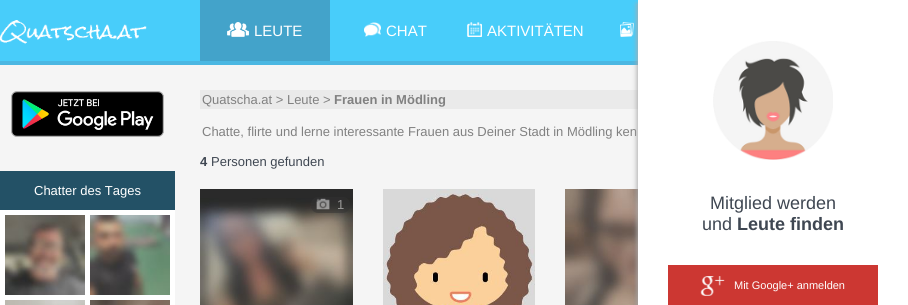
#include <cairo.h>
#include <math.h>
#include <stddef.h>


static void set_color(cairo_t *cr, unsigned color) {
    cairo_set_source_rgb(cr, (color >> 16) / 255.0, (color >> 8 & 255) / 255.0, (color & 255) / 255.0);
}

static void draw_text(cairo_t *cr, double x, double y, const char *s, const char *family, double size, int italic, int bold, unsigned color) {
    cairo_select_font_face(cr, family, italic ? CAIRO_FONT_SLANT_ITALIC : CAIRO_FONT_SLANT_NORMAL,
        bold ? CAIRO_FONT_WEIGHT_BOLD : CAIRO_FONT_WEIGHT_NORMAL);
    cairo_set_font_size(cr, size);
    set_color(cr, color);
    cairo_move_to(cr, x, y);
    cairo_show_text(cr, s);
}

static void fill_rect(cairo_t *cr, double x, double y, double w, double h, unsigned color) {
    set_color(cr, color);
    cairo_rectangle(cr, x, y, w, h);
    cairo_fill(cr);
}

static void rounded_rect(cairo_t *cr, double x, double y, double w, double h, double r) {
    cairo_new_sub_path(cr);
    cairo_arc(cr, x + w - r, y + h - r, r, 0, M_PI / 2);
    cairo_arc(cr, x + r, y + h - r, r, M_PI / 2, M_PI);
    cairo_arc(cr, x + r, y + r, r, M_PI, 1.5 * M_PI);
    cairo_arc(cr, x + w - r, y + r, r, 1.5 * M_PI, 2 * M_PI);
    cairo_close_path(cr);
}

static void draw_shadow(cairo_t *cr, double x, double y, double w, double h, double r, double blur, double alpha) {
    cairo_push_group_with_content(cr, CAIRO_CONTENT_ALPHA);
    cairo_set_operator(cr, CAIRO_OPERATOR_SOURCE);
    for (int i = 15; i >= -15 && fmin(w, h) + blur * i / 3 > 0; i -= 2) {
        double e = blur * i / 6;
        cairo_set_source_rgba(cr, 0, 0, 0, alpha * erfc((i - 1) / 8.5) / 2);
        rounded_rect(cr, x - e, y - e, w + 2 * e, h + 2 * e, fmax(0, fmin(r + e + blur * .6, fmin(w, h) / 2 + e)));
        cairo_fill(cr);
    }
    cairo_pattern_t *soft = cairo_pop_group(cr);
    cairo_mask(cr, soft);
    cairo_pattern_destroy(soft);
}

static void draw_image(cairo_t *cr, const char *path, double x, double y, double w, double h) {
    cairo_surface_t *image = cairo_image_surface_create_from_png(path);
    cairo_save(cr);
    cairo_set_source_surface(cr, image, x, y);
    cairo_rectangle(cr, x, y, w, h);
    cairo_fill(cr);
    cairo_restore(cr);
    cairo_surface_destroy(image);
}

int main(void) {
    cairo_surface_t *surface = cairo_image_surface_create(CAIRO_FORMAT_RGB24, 908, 305);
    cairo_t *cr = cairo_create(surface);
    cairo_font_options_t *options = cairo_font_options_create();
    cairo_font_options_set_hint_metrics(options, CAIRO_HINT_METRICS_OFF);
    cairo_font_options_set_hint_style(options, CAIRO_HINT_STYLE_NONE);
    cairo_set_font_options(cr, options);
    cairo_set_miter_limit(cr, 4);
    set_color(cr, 0xF5F5F5);
    cairo_paint(cr);
    fill_rect(cr, 0, 0, 638, 61, 0x48CDFA);
    fill_rect(cr, 0, 61, 638, 4, 0x4BB7E2);
    draw_image(cr, "assets/img1.png", 0, 20, 147, 24);
    fill_rect(cr, 200, 0, 130, 61, 0x43A3CA);
    draw_image(cr, "assets/img2.png", 227, 22, 22, 15);
    draw_text(cr, 254, 36, "LEUTE", "Liberation Sans", 15, 0, 0, 0xFFFFFF);
    draw_image(cr, "assets/img3.png", 364, 22, 17, 15);
    draw_text(cr, 386, 36, "CHAT", "Liberation Sans", 15, 0, 0, 0xFFFFFF);
    draw_image(cr, "assets/img4.png", 467, 22, 15, 15);
    draw_text(cr, 487, 36, "AKTIVITÄTEN", "Liberation Sans", 15, 0, 0, 0xFFFFFF);
    draw_image(cr, "assets/img5.png", 620, 22, 14, 15);
    draw_image(cr, "assets/img6.png", 11, 91, 153, 46);
    fill_rect(cr, 0, 171, 175, 39, 0x235166);
    draw_text(cr, 34, 195, "Chatter des Tages", "Liberation Sans", 13, 0, 0, 0xFFFFFF);
    fill_rect(cr, 0, 210, 175, 95, 0xFFFFFF);
    draw_image(cr, "assets/img7.png", 5, 215, 80, 80);
    draw_image(cr, "assets/img8.png", 90, 215, 80, 80);
    draw_image(cr, "assets/img9.png", 5, 300, 80, 5);
    draw_image(cr, "assets/img10.png", 90, 300, 80, 5);
    fill_rect(cr, 200, 90, 438, 19, 0xEAEAEA);
    draw_text(cr, 202, 104, "Quatscha.at > Leute >", "Liberation Sans", 13, 0, 0, 0x818181);
    draw_text(cr, 334, 104, "Frauen in Mödling", "Liberation Sans", 13, 0, 1, 0x818181);
    draw_text(cr, 202, 136, "Chatte, flirte und lerne interessante Frauen aus Deiner Stadt in Mödling ken", "Liberation Sans", 13, 0, 0, 0x818181);
    draw_text(cr, 200, 166, "4", "Liberation Sans", 13, 0, 1, 0x3F4752);
    draw_text(cr, 211, 166, "Personen gefunden", "Liberation Sans", 13, 0, 0, 0x3F4752);
    draw_image(cr, "assets/img11.png", 200, 189, 153, 116);
    cairo_set_source_rgba(cr, 0.2, 0.2, 0.2, 0.5);
    rounded_rect(cr, 311, 197, 39, 16, 7);
    cairo_fill(cr);
    draw_image(cr, "assets/img12.png", 316, 198, 14, 12);
    draw_text(cr, 337, 209, "1", "Liberation Sans", 13, 0, 0, 0x999998);
    draw_image(cr, "assets/img13.png", 383, 189, 152, 116);
    draw_image(cr, "assets/img14.png", 565, 189, 73, 116);
    set_color(cr, 0xAAAAAA);
    draw_shadow(cr, 637, 4, 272, 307, 0, 2.5, 1);
    fill_rect(cr, 638, 0, 270, 305, 0xFFFFFF);
    draw_image(cr, "assets/img15.png", 713, 41, 120, 119);
    draw_text(cr, 710, 209, "Mitglied werden", "Liberation Sans", 18, 0, 0, 0x3F4752);
    draw_text(cr, 702, 230, "und", "Liberation Sans", 18, 0, 0, 0x3F4752);
    draw_text(cr, 737, 230, "Leute finden", "Liberation Sans", 18, 0, 1, 0x3F4752);
    fill_rect(cr, 668, 265, 210, 40, 0xCC3732);
    draw_image(cr, "assets/img16.png", 700, 276, 25, 20);
    draw_text(cr, 734, 289, "Mit Google+ anmelden", "Liberation Sans", 11, 0, 0, 0xFFFFFF);
    cairo_surface_write_to_png(surface, "output.png");
    cairo_font_options_destroy(options);
    cairo_destroy(cr);
    cairo_surface_destroy(surface);
    return 0;
}
